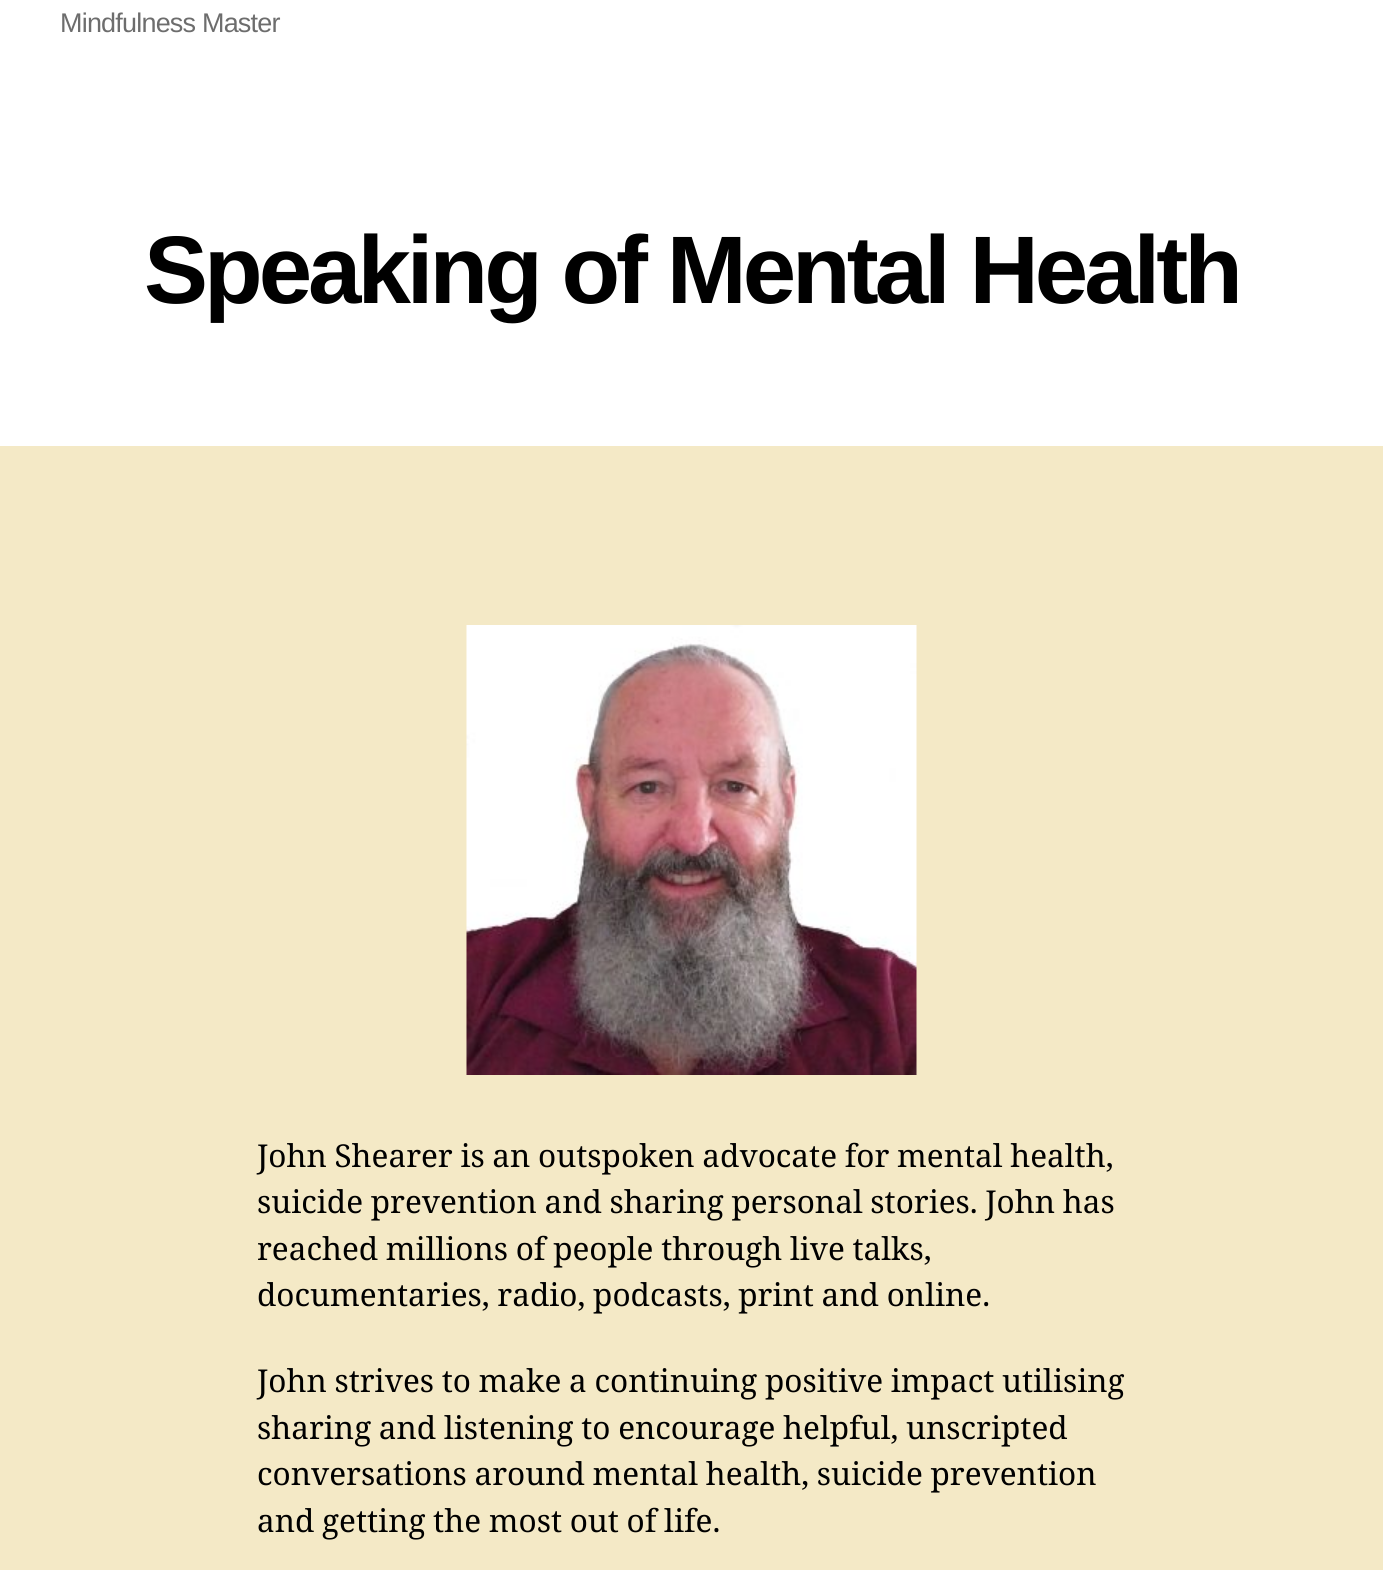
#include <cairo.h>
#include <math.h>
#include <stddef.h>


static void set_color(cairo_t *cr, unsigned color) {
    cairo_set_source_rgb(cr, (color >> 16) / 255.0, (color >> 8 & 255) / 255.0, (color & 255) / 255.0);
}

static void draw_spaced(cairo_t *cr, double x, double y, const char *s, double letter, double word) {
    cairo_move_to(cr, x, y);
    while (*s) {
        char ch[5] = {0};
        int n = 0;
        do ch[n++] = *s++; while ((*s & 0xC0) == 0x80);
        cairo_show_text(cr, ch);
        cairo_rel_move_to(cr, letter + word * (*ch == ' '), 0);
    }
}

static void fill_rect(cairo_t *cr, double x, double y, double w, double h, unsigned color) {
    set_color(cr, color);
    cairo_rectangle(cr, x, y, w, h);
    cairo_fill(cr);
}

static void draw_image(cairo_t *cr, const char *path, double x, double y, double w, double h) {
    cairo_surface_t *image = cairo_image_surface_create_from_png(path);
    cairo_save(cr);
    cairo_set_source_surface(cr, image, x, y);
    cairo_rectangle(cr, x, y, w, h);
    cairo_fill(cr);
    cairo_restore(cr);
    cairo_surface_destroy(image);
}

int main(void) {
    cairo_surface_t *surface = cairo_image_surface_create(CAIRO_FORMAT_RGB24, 1383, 1570);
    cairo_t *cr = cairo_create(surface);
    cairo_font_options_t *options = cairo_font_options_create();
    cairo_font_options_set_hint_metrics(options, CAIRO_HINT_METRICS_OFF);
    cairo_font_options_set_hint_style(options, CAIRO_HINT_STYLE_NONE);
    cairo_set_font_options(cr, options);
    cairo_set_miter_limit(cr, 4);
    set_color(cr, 0xF4E9C6);
    cairo_paint(cr);
    fill_rect(cr, 0, 0, 1383, 446, 0xFFFFFF);
    cairo_select_font_face(cr, "Liberation Sans", CAIRO_FONT_SLANT_NORMAL, CAIRO_FONT_WEIGHT_NORMAL);
    cairo_set_font_size(cr, 27);
    set_color(cr, 0x6D6D6D);
    draw_spaced(cr, 60, 32, "Mindfulness Master", -0.8, 0);
    cairo_select_font_face(cr, "Liberation Sans", CAIRO_FONT_SLANT_NORMAL, CAIRO_FONT_WEIGHT_BOLD);
    cairo_set_font_size(cr, 96);
    set_color(cr, 0x000000);
    draw_spaced(cr, 144, 303, "Speaking of Mental Health", -4, 0);
    draw_image(cr, "assets/img1.png", 466, 625, 451, 450);
    cairo_select_font_face(cr, "Noto Serif", CAIRO_FONT_SLANT_NORMAL, CAIRO_FONT_WEIGHT_NORMAL);
    cairo_set_font_size(cr, 31.5);
    draw_spaced(cr, 257, 1167, "John Shearer is an outspoken advocate for mental health,", 0, -0.5);
    draw_spaced(cr, 257, 1213, "suicide prevention and sharing personal stories. John has", 0, -0.5);
    draw_spaced(cr, 257, 1260, "reached millions of people through live talks,", 0, -0.5);
    draw_spaced(cr, 257, 1306, "documentaries, radio, podcasts, print and online.", 0, -0.5);
    draw_spaced(cr, 257, 1392, "John strives to make a continuing positive impact utilising", 0, -0.5);
    draw_spaced(cr, 257, 1439, "sharing and listening to encourage helpful, unscripted", 0, -0.5);
    draw_spaced(cr, 257, 1485, "conversations around mental health, suicide prevention", 0, -0.5);
    draw_spaced(cr, 257, 1532, "and getting the most out of life.", 0, -0.5);
    cairo_surface_write_to_png(surface, "output.png");
    cairo_font_options_destroy(options);
    cairo_destroy(cr);
    cairo_surface_destroy(surface);
    return 0;
}
